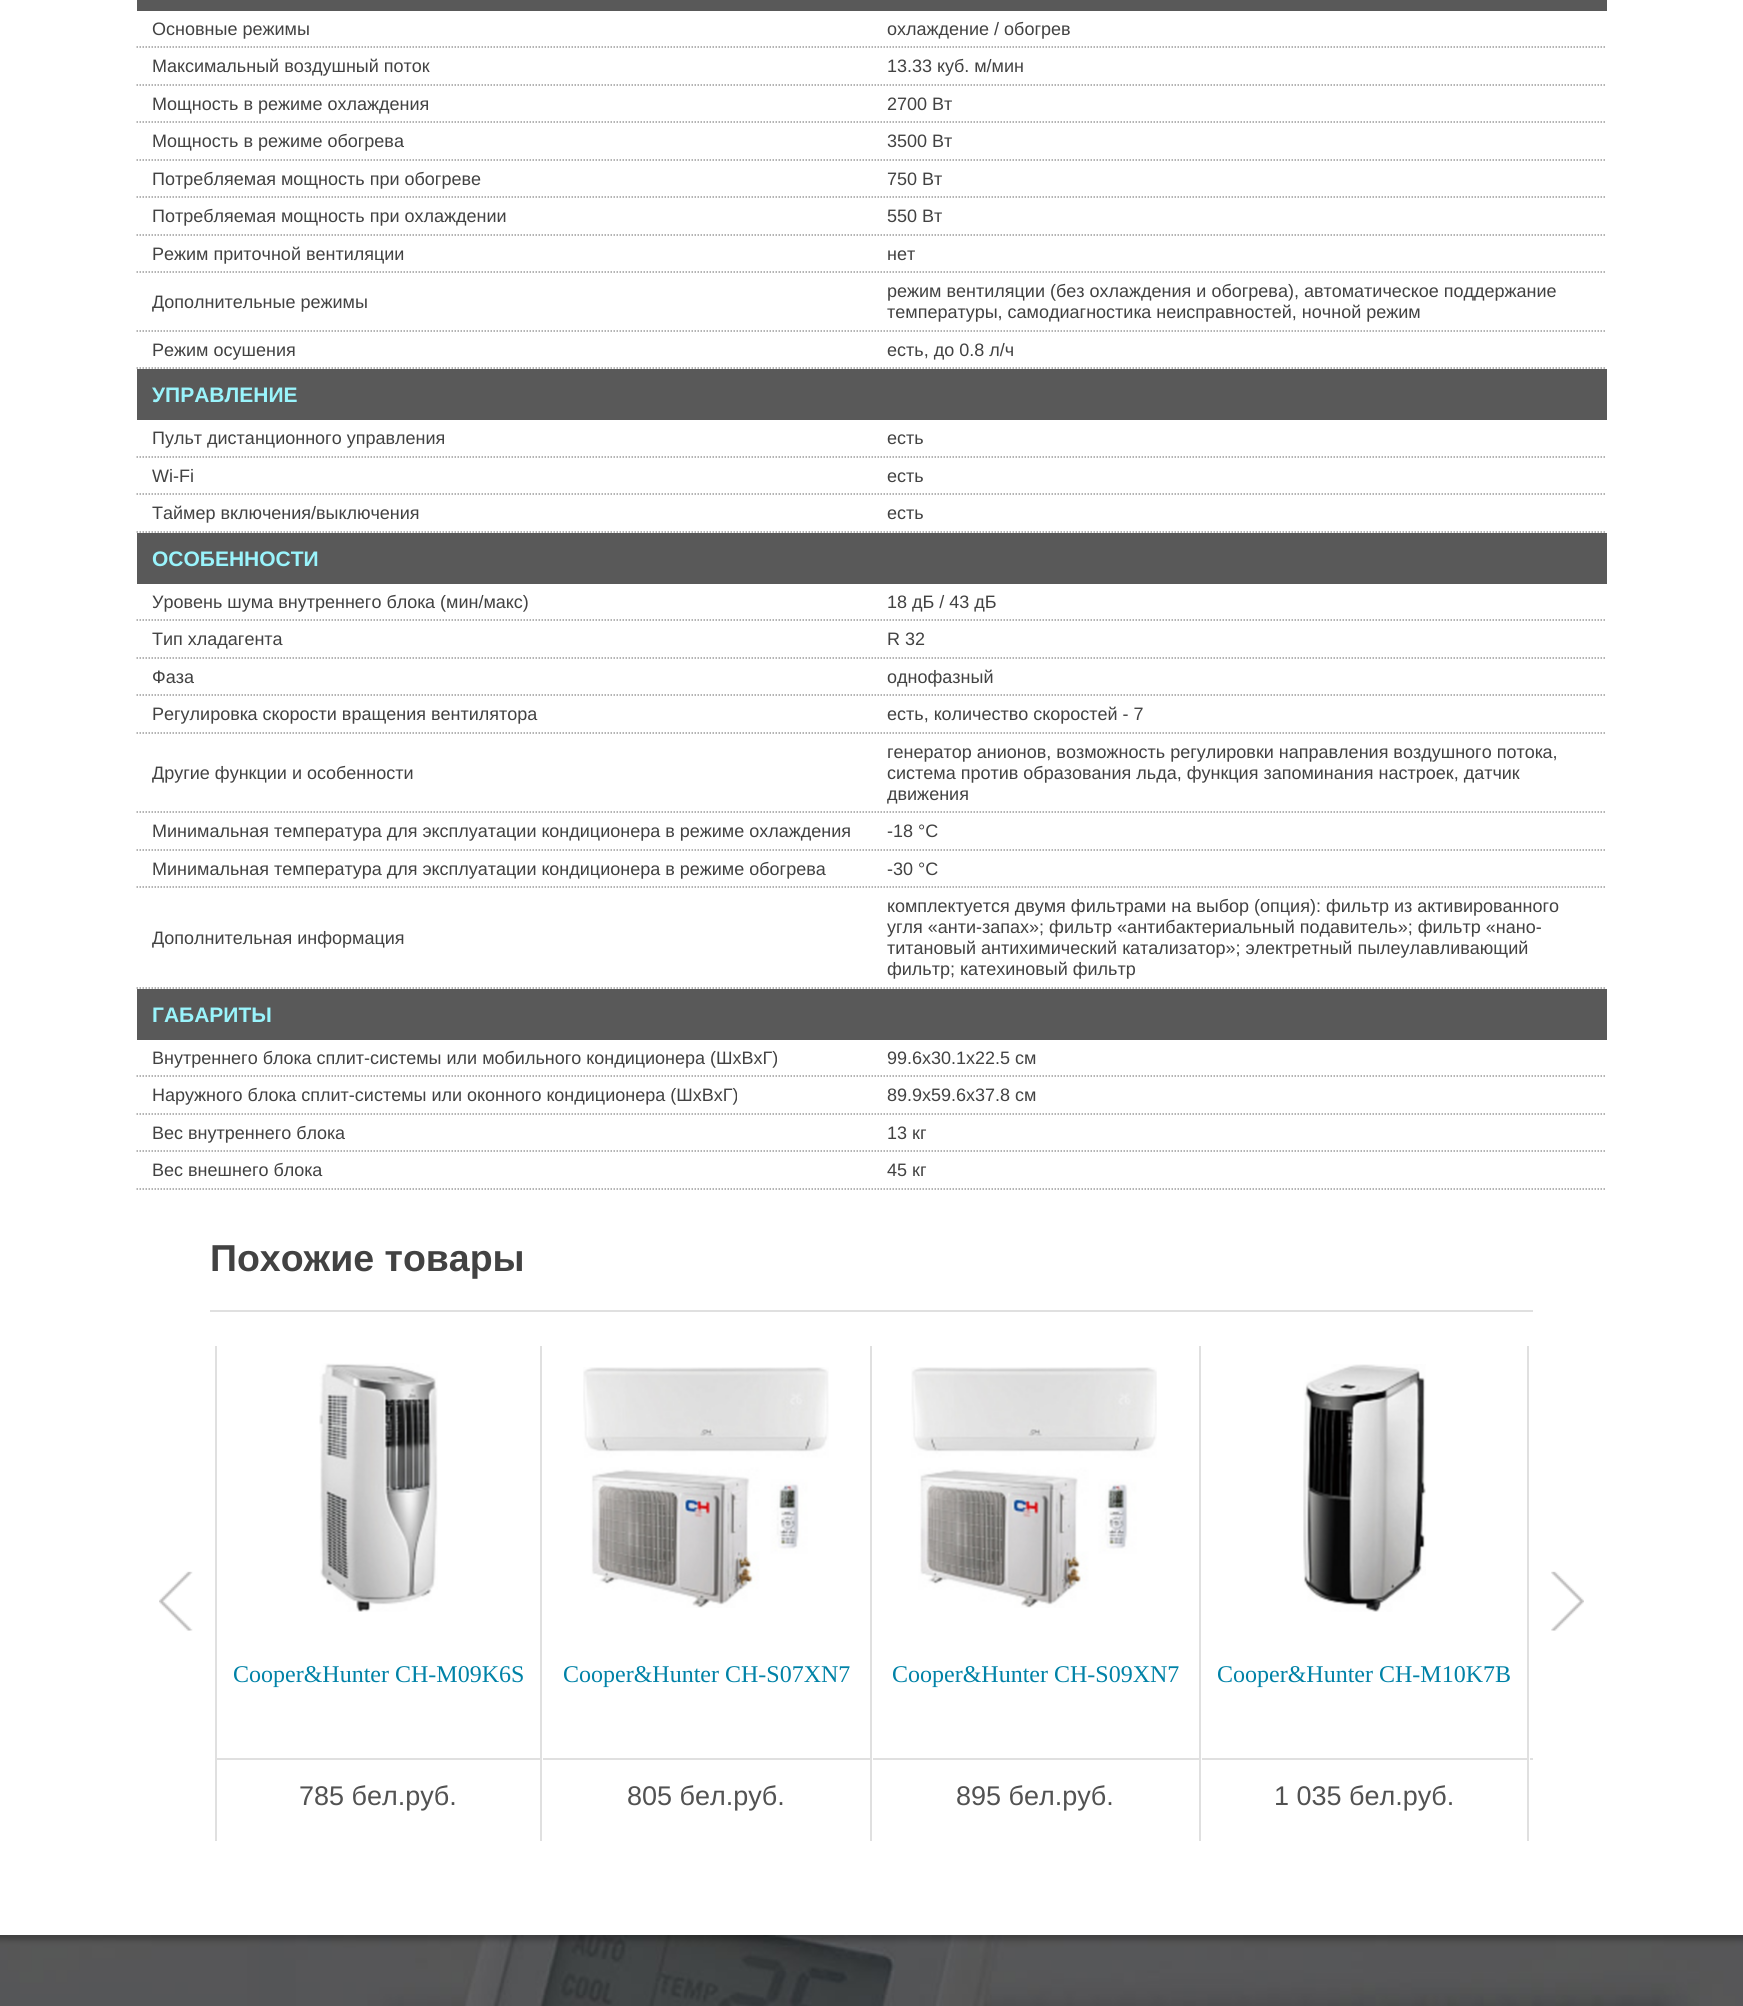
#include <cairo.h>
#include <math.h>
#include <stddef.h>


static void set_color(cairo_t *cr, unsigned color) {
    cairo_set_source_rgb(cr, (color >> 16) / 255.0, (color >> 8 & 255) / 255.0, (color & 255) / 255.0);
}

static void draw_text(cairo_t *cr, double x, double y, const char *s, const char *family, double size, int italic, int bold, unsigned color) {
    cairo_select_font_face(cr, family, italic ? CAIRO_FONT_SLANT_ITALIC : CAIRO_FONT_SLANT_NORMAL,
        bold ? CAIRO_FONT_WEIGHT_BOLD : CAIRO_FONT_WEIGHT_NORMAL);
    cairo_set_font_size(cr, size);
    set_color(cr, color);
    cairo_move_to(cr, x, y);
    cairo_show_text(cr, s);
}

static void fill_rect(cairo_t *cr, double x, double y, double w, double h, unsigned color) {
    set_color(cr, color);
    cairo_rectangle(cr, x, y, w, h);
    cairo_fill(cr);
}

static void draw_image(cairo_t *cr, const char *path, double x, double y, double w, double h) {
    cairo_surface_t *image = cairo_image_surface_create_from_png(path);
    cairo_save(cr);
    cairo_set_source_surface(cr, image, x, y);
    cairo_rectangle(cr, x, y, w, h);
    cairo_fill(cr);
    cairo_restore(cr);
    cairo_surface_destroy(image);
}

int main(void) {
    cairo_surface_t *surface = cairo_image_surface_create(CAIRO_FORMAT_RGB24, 1743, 2006);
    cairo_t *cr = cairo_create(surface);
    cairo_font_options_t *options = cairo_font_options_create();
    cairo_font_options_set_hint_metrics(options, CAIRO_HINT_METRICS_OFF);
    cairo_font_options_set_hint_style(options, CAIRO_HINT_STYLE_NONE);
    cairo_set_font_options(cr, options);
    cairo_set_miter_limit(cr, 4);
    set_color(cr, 0xFFFFFF);
    cairo_paint(cr);
    fill_rect(cr, 137, 0, 1470, 11, 0x595959);
    cairo_new_path(cr);
    cairo_move_to(cr, 136.5, 47);
    cairo_line_to(cr, 871.5, 47);
    set_color(cr, 0x9C9C9C);
    cairo_set_line_width(cr, 1.5);
    cairo_set_dash(cr, (double[]){1.5, 1.5}, 2, 0);
    cairo_stroke(cr);
    draw_text(cr, 152, 35, "Основные режимы", "Liberation Sans", 18, 0, 0, 0x424242);
    cairo_new_path(cr);
    cairo_move_to(cr, 871.5, 47);
    cairo_line_to(cr, 1606.5, 47);
    set_color(cr, 0x9C9C9C);
    cairo_stroke(cr);
    draw_text(cr, 887, 35, "охлаждение / обогрев", "Liberation Sans", 18, 0, 0, 0x424242);
    cairo_new_path(cr);
    cairo_move_to(cr, 136.5, 85);
    cairo_line_to(cr, 871.5, 85);
    set_color(cr, 0x9C9C9C);
    cairo_stroke(cr);
    draw_text(cr, 152, 72, "Максимальный воздушный поток", "Liberation Sans", 18, 0, 0, 0x424242);
    cairo_new_path(cr);
    cairo_move_to(cr, 871.5, 85);
    cairo_line_to(cr, 1606.5, 85);
    set_color(cr, 0x9C9C9C);
    cairo_stroke(cr);
    draw_text(cr, 887, 72, "13.33 куб. м/мин", "Liberation Sans", 18, 0, 0, 0x424242);
    cairo_new_path(cr);
    cairo_move_to(cr, 136.5, 122);
    cairo_line_to(cr, 871.5, 122);
    set_color(cr, 0x9C9C9C);
    cairo_stroke(cr);
    draw_text(cr, 152, 110, "Мощность в режиме охлаждения", "Liberation Sans", 18, 0, 0, 0x424242);
    cairo_new_path(cr);
    cairo_move_to(cr, 871.5, 122);
    cairo_line_to(cr, 1606.5, 122);
    set_color(cr, 0x9C9C9C);
    cairo_stroke(cr);
    draw_text(cr, 887, 110, "2700 Вт", "Liberation Sans", 18, 0, 0, 0x424242);
    cairo_new_path(cr);
    cairo_move_to(cr, 136.5, 160);
    cairo_line_to(cr, 871.5, 160);
    set_color(cr, 0x9C9C9C);
    cairo_stroke(cr);
    draw_text(cr, 152, 147, "Мощность в режиме обогрева", "Liberation Sans", 18, 0, 0, 0x424242);
    cairo_new_path(cr);
    cairo_move_to(cr, 871.5, 160);
    cairo_line_to(cr, 1606.5, 160);
    set_color(cr, 0x9C9C9C);
    cairo_stroke(cr);
    draw_text(cr, 887, 147, "3500 Вт", "Liberation Sans", 18, 0, 0, 0x424242);
    cairo_new_path(cr);
    cairo_move_to(cr, 136.5, 197);
    cairo_line_to(cr, 871.5, 197);
    set_color(cr, 0x9C9C9C);
    cairo_stroke(cr);
    draw_text(cr, 152, 185, "Потребляемая мощность при обогреве", "Liberation Sans", 18, 0, 0, 0x424242);
    cairo_new_path(cr);
    cairo_move_to(cr, 871.5, 197);
    cairo_line_to(cr, 1606.5, 197);
    set_color(cr, 0x9C9C9C);
    cairo_stroke(cr);
    draw_text(cr, 887, 185, "750 Вт", "Liberation Sans", 18, 0, 0, 0x424242);
    cairo_new_path(cr);
    cairo_move_to(cr, 136.5, 235);
    cairo_line_to(cr, 871.5, 235);
    set_color(cr, 0x9C9C9C);
    cairo_stroke(cr);
    draw_text(cr, 152, 222, "Потребляемая мощность при охлаждении", "Liberation Sans", 18, 0, 0, 0x424242);
    cairo_new_path(cr);
    cairo_move_to(cr, 871.5, 235);
    cairo_line_to(cr, 1606.5, 235);
    set_color(cr, 0x9C9C9C);
    cairo_stroke(cr);
    draw_text(cr, 887, 222, "550 Вт", "Liberation Sans", 18, 0, 0, 0x424242);
    cairo_new_path(cr);
    cairo_move_to(cr, 136.5, 272);
    cairo_line_to(cr, 871.5, 272);
    set_color(cr, 0x9C9C9C);
    cairo_stroke(cr);
    draw_text(cr, 152, 260, "Режим приточной вентиляции", "Liberation Sans", 18, 0, 0, 0x424242);
    cairo_new_path(cr);
    cairo_move_to(cr, 871.5, 272);
    cairo_line_to(cr, 1606.5, 272);
    set_color(cr, 0x9C9C9C);
    cairo_stroke(cr);
    draw_text(cr, 887, 260, "нет", "Liberation Sans", 18, 0, 0, 0x424242);
    cairo_new_path(cr);
    cairo_move_to(cr, 136.5, 331);
    cairo_line_to(cr, 871.5, 331);
    set_color(cr, 0x9C9C9C);
    cairo_stroke(cr);
    draw_text(cr, 152, 308, "Дополнительные режимы", "Liberation Sans", 18, 0, 0, 0x424242);
    cairo_new_path(cr);
    cairo_move_to(cr, 871.5, 331);
    cairo_line_to(cr, 1606.5, 331);
    set_color(cr, 0x9C9C9C);
    cairo_stroke(cr);
    draw_text(cr, 887, 297, "режим вентиляции (без охлаждения и обогрева), автоматическое поддержание", "Liberation Sans", 18, 0, 0, 0x424242);
    draw_text(cr, 887, 318, "температуры, самодиагностика неисправностей, ночной режим", "Liberation Sans", 18, 0, 0, 0x424242);
    cairo_new_path(cr);
    cairo_move_to(cr, 136.5, 368);
    cairo_line_to(cr, 871.5, 368);
    set_color(cr, 0x9C9C9C);
    cairo_stroke(cr);
    draw_text(cr, 152, 356, "Режим осушения", "Liberation Sans", 18, 0, 0, 0x424242);
    cairo_new_path(cr);
    cairo_move_to(cr, 871.5, 368);
    cairo_line_to(cr, 1606.5, 368);
    set_color(cr, 0x9C9C9C);
    cairo_stroke(cr);
    draw_text(cr, 887, 356, "есть, до 0.8 л/ч", "Liberation Sans", 18, 0, 0, 0x424242);
    fill_rect(cr, 137, 369, 1470, 51, 0x595959);
    draw_text(cr, 152, 402, "УПРАВЛЕНИЕ", "Liberation Sans", 21, 0, 1, 0x99F4FC);
    cairo_new_path(cr);
    cairo_move_to(cr, 136.5, 457);
    cairo_line_to(cr, 871.5, 457);
    set_color(cr, 0x9C9C9C);
    cairo_stroke(cr);
    draw_text(cr, 152, 444, "Пульт дистанционного управления", "Liberation Sans", 18, 0, 0, 0x424242);
    cairo_new_path(cr);
    cairo_move_to(cr, 871.5, 457);
    cairo_line_to(cr, 1606.5, 457);
    set_color(cr, 0x9C9C9C);
    cairo_stroke(cr);
    draw_text(cr, 887, 444, "есть", "Liberation Sans", 18, 0, 0, 0x424242);
    cairo_new_path(cr);
    cairo_move_to(cr, 136.5, 494);
    cairo_line_to(cr, 871.5, 494);
    set_color(cr, 0x9C9C9C);
    cairo_stroke(cr);
    draw_text(cr, 152, 482, "Wi-Fi", "Liberation Sans", 18, 0, 0, 0x424242);
    cairo_new_path(cr);
    cairo_move_to(cr, 871.5, 494);
    cairo_line_to(cr, 1606.5, 494);
    set_color(cr, 0x9C9C9C);
    cairo_stroke(cr);
    draw_text(cr, 887, 482, "есть", "Liberation Sans", 18, 0, 0, 0x424242);
    cairo_new_path(cr);
    cairo_move_to(cr, 136.5, 532);
    cairo_line_to(cr, 871.5, 532);
    set_color(cr, 0x9C9C9C);
    cairo_stroke(cr);
    draw_text(cr, 152, 519, "Таймер включения/выключения", "Liberation Sans", 18, 0, 0, 0x424242);
    cairo_new_path(cr);
    cairo_move_to(cr, 871.5, 532);
    cairo_line_to(cr, 1606.5, 532);
    set_color(cr, 0x9C9C9C);
    cairo_stroke(cr);
    draw_text(cr, 887, 519, "есть", "Liberation Sans", 18, 0, 0, 0x424242);
    fill_rect(cr, 137, 533, 1470, 51, 0x595959);
    draw_text(cr, 152, 566, "ОСОБЕННОСТИ", "Liberation Sans", 21, 0, 1, 0x99F4FC);
    cairo_new_path(cr);
    cairo_move_to(cr, 136.5, 620);
    cairo_line_to(cr, 871.5, 620);
    set_color(cr, 0x9C9C9C);
    cairo_stroke(cr);
    draw_text(cr, 152, 608, "Уровень шума внутреннего блока (мин/макс)", "Liberation Sans", 18, 0, 0, 0x424242);
    cairo_new_path(cr);
    cairo_move_to(cr, 871.5, 620);
    cairo_line_to(cr, 1606.5, 620);
    set_color(cr, 0x9C9C9C);
    cairo_stroke(cr);
    draw_text(cr, 887, 608, "18 дБ / 43 дБ", "Liberation Sans", 18, 0, 0, 0x424242);
    cairo_new_path(cr);
    cairo_move_to(cr, 136.5, 658);
    cairo_line_to(cr, 871.5, 658);
    set_color(cr, 0x9C9C9C);
    cairo_stroke(cr);
    draw_text(cr, 152, 645, "Тип хладагента", "Liberation Sans", 18, 0, 0, 0x424242);
    cairo_new_path(cr);
    cairo_move_to(cr, 871.5, 658);
    cairo_line_to(cr, 1606.5, 658);
    set_color(cr, 0x9C9C9C);
    cairo_stroke(cr);
    draw_text(cr, 887, 645, "R 32", "Liberation Sans", 18, 0, 0, 0x424242);
    cairo_new_path(cr);
    cairo_move_to(cr, 136.5, 695);
    cairo_line_to(cr, 871.5, 695);
    set_color(cr, 0x9C9C9C);
    cairo_stroke(cr);
    draw_text(cr, 152, 683, "Фаза", "Liberation Sans", 18, 0, 0, 0x424242);
    cairo_new_path(cr);
    cairo_move_to(cr, 871.5, 695);
    cairo_line_to(cr, 1606.5, 695);
    set_color(cr, 0x9C9C9C);
    cairo_stroke(cr);
    draw_text(cr, 887, 683, "однофазный", "Liberation Sans", 18, 0, 0, 0x424242);
    cairo_new_path(cr);
    cairo_move_to(cr, 136.5, 733);
    cairo_line_to(cr, 871.5, 733);
    set_color(cr, 0x9C9C9C);
    cairo_stroke(cr);
    draw_text(cr, 152, 720, "Регулировка скорости вращения вентилятора", "Liberation Sans", 18, 0, 0, 0x424242);
    cairo_new_path(cr);
    cairo_move_to(cr, 871.5, 733);
    cairo_line_to(cr, 1606.5, 733);
    set_color(cr, 0x9C9C9C);
    cairo_stroke(cr);
    draw_text(cr, 887, 720, "есть, количество скоростей - 7", "Liberation Sans", 18, 0, 0, 0x424242);
    cairo_new_path(cr);
    cairo_move_to(cr, 136.5, 812);
    cairo_line_to(cr, 871.5, 812);
    set_color(cr, 0x9C9C9C);
    cairo_stroke(cr);
    draw_text(cr, 152, 779, "Другие функции и особенности", "Liberation Sans", 18, 0, 0, 0x424242);
    cairo_new_path(cr);
    cairo_move_to(cr, 871.5, 812);
    cairo_line_to(cr, 1606.5, 812);
    set_color(cr, 0x9C9C9C);
    cairo_stroke(cr);
    draw_text(cr, 887, 758, "генератор анионов, возможность регулировки направления воздушного потока,", "Liberation Sans", 18, 0, 0, 0x424242);
    draw_text(cr, 887, 779, "система против образования льда, функция запоминания настроек, датчик", "Liberation Sans", 18, 0, 0, 0x424242);
    draw_text(cr, 887, 800, "движения", "Liberation Sans", 18, 0, 0, 0x424242);
    cairo_new_path(cr);
    cairo_move_to(cr, 136.5, 850);
    cairo_line_to(cr, 871.5, 850);
    set_color(cr, 0x9C9C9C);
    cairo_stroke(cr);
    draw_text(cr, 152, 837, "Минимальная температура для эксплуатации кондиционера в режиме охлаждения", "Liberation Sans", 18, 0, 0, 0x424242);
    cairo_new_path(cr);
    cairo_move_to(cr, 871.5, 850);
    cairo_line_to(cr, 1606.5, 850);
    set_color(cr, 0x9C9C9C);
    cairo_stroke(cr);
    draw_text(cr, 887, 837, "-18 °С", "Liberation Sans", 18, 0, 0, 0x424242);
    cairo_new_path(cr);
    cairo_move_to(cr, 136.5, 887);
    cairo_line_to(cr, 871.5, 887);
    set_color(cr, 0x9C9C9C);
    cairo_stroke(cr);
    draw_text(cr, 152, 875, "Минимальная температура для эксплуатации кондиционера в режиме обогрева", "Liberation Sans", 18, 0, 0, 0x424242);
    cairo_new_path(cr);
    cairo_move_to(cr, 871.5, 887);
    cairo_line_to(cr, 1606.5, 887);
    set_color(cr, 0x9C9C9C);
    cairo_stroke(cr);
    draw_text(cr, 887, 875, "-30 °С", "Liberation Sans", 18, 0, 0, 0x424242);
    cairo_new_path(cr);
    cairo_move_to(cr, 136.5, 988);
    cairo_line_to(cr, 871.5, 988);
    set_color(cr, 0x9C9C9C);
    cairo_stroke(cr);
    draw_text(cr, 152, 944, "Дополнительная информация", "Liberation Sans", 18, 0, 0, 0x424242);
    cairo_new_path(cr);
    cairo_move_to(cr, 871.5, 988);
    cairo_line_to(cr, 1606.5, 988);
    set_color(cr, 0x9C9C9C);
    cairo_stroke(cr);
    draw_text(cr, 887, 912, "комплектуется двумя фильтрами на выбор (опция): фильтр из активированного", "Liberation Sans", 18, 0, 0, 0x424242);
    draw_text(cr, 887, 933, "угля «анти-запах»; фильтр «антибактериальный подавитель»; фильтр «нано-", "Liberation Sans", 18, 0, 0, 0x424242);
    draw_text(cr, 887, 954, "титановый антихимический катализатор»; электретный пылеулавливающий", "Liberation Sans", 18, 0, 0, 0x424242);
    draw_text(cr, 887, 975, "фильтр; катехиновый фильтр", "Liberation Sans", 18, 0, 0, 0x424242);
    fill_rect(cr, 137, 989, 1470, 51, 0x595959);
    draw_text(cr, 152, 1022, "ГАБАРИТЫ", "Liberation Sans", 21, 0, 1, 0x99F4FC);
    cairo_new_path(cr);
    cairo_move_to(cr, 136.5, 1076);
    cairo_line_to(cr, 871.5, 1076);
    set_color(cr, 0x9C9C9C);
    cairo_stroke(cr);
    draw_text(cr, 152, 1064, "Внутреннего блока сплит-системы или мобильного кондиционера (ШxВxГ)", "Liberation Sans", 18, 0, 0, 0x424242);
    cairo_new_path(cr);
    cairo_move_to(cr, 871.5, 1076);
    cairo_line_to(cr, 1606.5, 1076);
    set_color(cr, 0x9C9C9C);
    cairo_stroke(cr);
    draw_text(cr, 887, 1064, "99.6x30.1x22.5 см", "Liberation Sans", 18, 0, 0, 0x424242);
    cairo_new_path(cr);
    cairo_move_to(cr, 136.5, 1114);
    cairo_line_to(cr, 871.5, 1114);
    set_color(cr, 0x9C9C9C);
    cairo_stroke(cr);
    draw_text(cr, 152, 1101, "Наружного блока сплит-системы или оконного кондиционера (ШxВxГ)", "Liberation Sans", 18, 0, 0, 0x424242);
    cairo_new_path(cr);
    cairo_move_to(cr, 871.5, 1114);
    cairo_line_to(cr, 1606.5, 1114);
    set_color(cr, 0x9C9C9C);
    cairo_stroke(cr);
    draw_text(cr, 887, 1101, "89.9x59.6x37.8 см", "Liberation Sans", 18, 0, 0, 0x424242);
    cairo_new_path(cr);
    cairo_move_to(cr, 136.5, 1151);
    cairo_line_to(cr, 871.5, 1151);
    set_color(cr, 0x9C9C9C);
    cairo_stroke(cr);
    draw_text(cr, 152, 1139, "Вес внутреннего блока", "Liberation Sans", 18, 0, 0, 0x424242);
    cairo_new_path(cr);
    cairo_move_to(cr, 871.5, 1151);
    cairo_line_to(cr, 1606.5, 1151);
    set_color(cr, 0x9C9C9C);
    cairo_stroke(cr);
    draw_text(cr, 887, 1139, "13 кг", "Liberation Sans", 18, 0, 0, 0x424242);
    cairo_new_path(cr);
    cairo_move_to(cr, 136.5, 1189);
    cairo_line_to(cr, 871.5, 1189);
    set_color(cr, 0x9C9C9C);
    cairo_stroke(cr);
    draw_text(cr, 152, 1176, "Вес внешнего блока", "Liberation Sans", 18, 0, 0, 0x424242);
    cairo_new_path(cr);
    cairo_move_to(cr, 871.5, 1189);
    cairo_line_to(cr, 1606.5, 1189);
    set_color(cr, 0x9C9C9C);
    cairo_stroke(cr);
    draw_text(cr, 887, 1176, "45 кг", "Liberation Sans", 18, 0, 0, 0x424242);
    fill_rect(cr, 210, 1310, 1323, 2, 0xE0E0E0);
    draw_text(cr, 210, 1271, "Похожие товары", "Liberation Sans", 37.5, 0, 1, 0x424242);
    draw_image(cr, "assets/img1.png", 159, 1571, 34, 60);
    draw_image(cr, "assets/img2.png", 1551, 1571, 33, 60);
    fill_rect(cr, 540, 1346, 2, 495, 0xE0E0E0);
    fill_rect(cr, 215, 1346, 2, 495, 0xE0E0E0);
    fill_rect(cr, 216, 1758, 324, 2, 0xE0E0E0);
    draw_image(cr, "assets/img3.png", 319, 1363, 119, 249);
    draw_text(cr, 233, 1682, "Cooper&Hunter CH-M09K6S", "Liberation Serif", 24, 0, 0, 0x0082A7);
    draw_text(cr, 299, 1805, "785 бел.руб.", "Liberation Sans", 27, 0, 0, 0x525252);
    fill_rect(cr, 870, 1346, 2, 495, 0xE0E0E0);
    fill_rect(cr, 543, 1758, 327, 2, 0xE0E0E0);
    draw_image(cr, "assets/img4.png", 583, 1367, 246, 241);
    draw_text(cr, 563, 1682, "Cooper&Hunter CH-S07XN7", "Liberation Serif", 24, 0, 0, 0x0082A7);
    draw_text(cr, 627, 1805, "805 бел.руб.", "Liberation Sans", 27, 0, 0, 0x525252);
    fill_rect(cr, 1199, 1346, 2, 495, 0xE0E0E0);
    fill_rect(cr, 873, 1758, 326, 2, 0xE0E0E0);
    draw_image(cr, "assets/img5.png", 911, 1367, 246, 241);
    draw_text(cr, 892, 1682, "Cooper&Hunter CH-S09XN7", "Liberation Serif", 24, 0, 0, 0x0082A7);
    draw_text(cr, 956, 1805, "895 бел.руб.", "Liberation Sans", 27, 0, 0, 0x525252);
    fill_rect(cr, 1527, 1346, 2, 495, 0xE0E0E0);
    fill_rect(cr, 1202, 1758, 325, 2, 0xE0E0E0);
    draw_image(cr, "assets/img6.png", 1303, 1364, 123, 248);
    draw_text(cr, 1217, 1682, "Cooper&Hunter CH-M10K7B", "Liberation Serif", 24, 0, 0, 0x0082A7);
    draw_text(cr, 1274, 1805, "1 035 бел.руб.", "Liberation Sans", 27, 0, 0, 0x525252);
    fill_rect(cr, 1530, 1758, 3, 2, 0xE0E0E0);
    draw_image(cr, "assets/img7.png", 0, 1935, 1743, 71);
    cairo_surface_write_to_png(surface, "output.png");
    cairo_font_options_destroy(options);
    cairo_destroy(cr);
    cairo_surface_destroy(surface);
    return 0;
}
